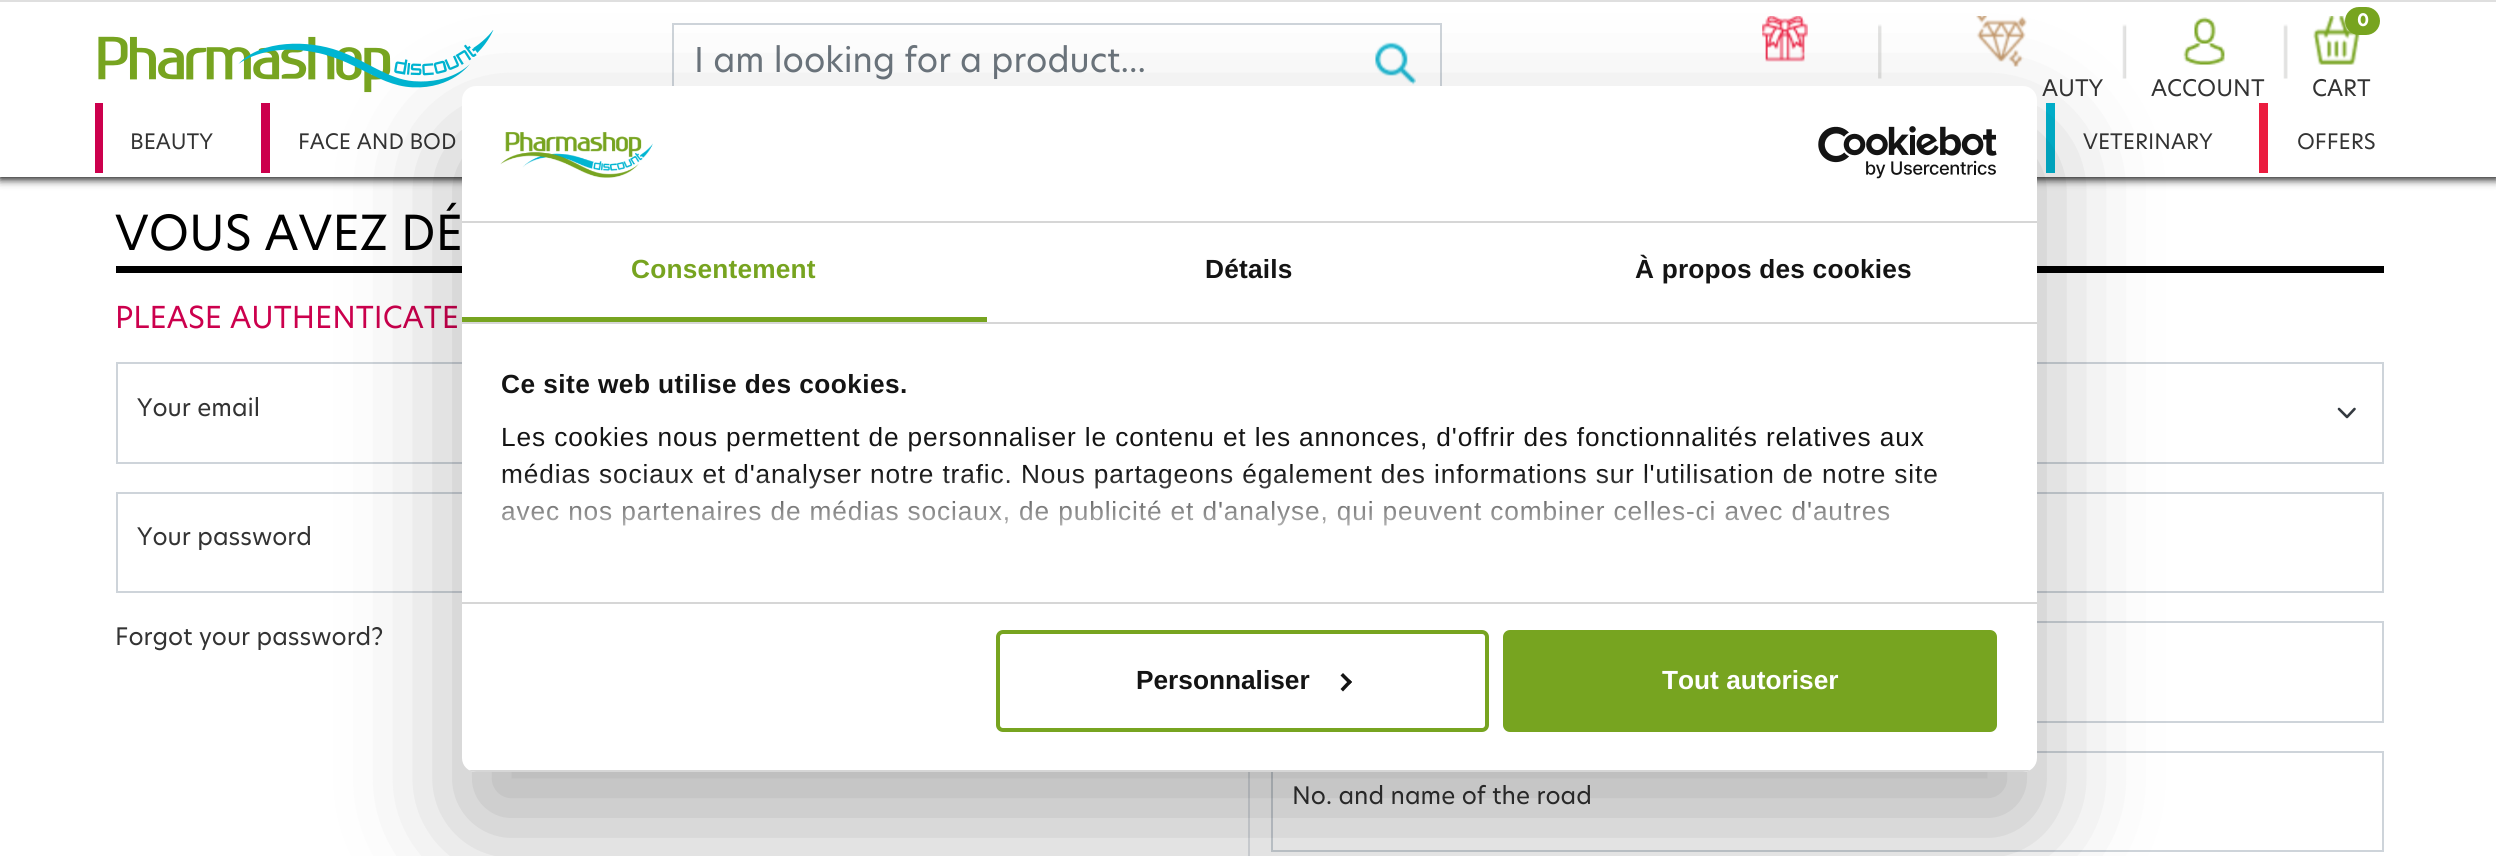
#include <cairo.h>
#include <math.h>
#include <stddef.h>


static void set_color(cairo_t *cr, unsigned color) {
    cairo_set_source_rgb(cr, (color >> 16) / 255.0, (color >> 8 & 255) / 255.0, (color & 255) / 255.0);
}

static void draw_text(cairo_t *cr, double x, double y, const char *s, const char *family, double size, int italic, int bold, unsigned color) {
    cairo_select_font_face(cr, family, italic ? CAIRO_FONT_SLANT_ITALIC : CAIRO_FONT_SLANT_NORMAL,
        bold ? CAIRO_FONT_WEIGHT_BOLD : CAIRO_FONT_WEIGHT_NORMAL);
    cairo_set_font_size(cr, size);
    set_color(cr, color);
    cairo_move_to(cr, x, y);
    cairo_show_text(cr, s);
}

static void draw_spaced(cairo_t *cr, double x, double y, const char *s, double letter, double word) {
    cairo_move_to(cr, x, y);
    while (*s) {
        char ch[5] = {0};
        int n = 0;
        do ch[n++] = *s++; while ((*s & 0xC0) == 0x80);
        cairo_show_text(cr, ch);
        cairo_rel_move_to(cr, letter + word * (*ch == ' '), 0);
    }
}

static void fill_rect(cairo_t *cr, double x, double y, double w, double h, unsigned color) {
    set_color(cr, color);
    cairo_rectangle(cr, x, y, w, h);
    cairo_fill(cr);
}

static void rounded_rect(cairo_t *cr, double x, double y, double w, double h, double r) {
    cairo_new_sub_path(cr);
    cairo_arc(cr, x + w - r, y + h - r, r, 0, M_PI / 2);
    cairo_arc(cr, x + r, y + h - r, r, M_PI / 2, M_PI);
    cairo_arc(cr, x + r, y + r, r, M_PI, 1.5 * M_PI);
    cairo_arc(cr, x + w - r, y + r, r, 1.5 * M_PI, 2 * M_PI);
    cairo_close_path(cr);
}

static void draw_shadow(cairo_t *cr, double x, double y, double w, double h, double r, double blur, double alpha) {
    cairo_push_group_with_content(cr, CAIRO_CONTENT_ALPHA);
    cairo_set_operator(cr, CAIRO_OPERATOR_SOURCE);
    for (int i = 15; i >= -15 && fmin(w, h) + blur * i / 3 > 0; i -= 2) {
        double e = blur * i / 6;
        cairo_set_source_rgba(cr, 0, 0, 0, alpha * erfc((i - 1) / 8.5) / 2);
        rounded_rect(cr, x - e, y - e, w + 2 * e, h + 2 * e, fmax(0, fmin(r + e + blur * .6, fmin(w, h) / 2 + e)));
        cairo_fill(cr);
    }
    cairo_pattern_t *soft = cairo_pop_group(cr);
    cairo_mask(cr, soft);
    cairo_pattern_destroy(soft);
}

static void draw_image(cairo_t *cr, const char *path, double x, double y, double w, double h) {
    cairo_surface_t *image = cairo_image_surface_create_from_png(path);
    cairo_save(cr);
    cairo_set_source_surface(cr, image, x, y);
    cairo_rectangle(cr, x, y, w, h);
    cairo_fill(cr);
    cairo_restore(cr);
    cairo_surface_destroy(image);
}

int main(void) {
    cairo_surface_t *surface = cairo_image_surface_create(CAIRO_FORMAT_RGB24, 2496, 856);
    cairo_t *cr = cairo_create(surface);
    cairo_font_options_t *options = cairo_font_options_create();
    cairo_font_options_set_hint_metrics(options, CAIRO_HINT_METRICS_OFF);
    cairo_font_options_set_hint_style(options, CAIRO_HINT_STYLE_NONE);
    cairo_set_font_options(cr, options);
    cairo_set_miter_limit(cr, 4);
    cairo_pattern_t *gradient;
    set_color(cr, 0xFFFFFF);
    cairo_paint(cr);
    set_color(cr, 0x000000);
    draw_shadow(cr, 0, 2, 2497, 177, 0, 4.5, 1);
    fill_rect(cr, 0, 2, 2496, 175, 0xFFFFFF);
    fill_rect(cr, 0, 0, 2496, 2, 0xDFDFDF);
    draw_image(cr, "assets/img1.png", 98, 30, 396, 63);
    fill_rect(cr, 672, 23, 770, 2, 0xCED4DA);
    fill_rect(cr, 672, 23, 2, 63, 0xCED4DA);
    draw_text(cr, 694, 72, "I am looking for a product...", "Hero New", 33.6, 0, 0, 0x6C757D);
    draw_image(cr, "assets/img2.png", 1375, 42, 41, 43);
    fill_rect(cr, 1440, 23, 2, 63, 0xCED4DA);
    draw_image(cr, "assets/img3.png", 1762, 16, 46, 46);
    draw_image(cr, "assets/img4.png", 2283, 24, 5, 55);
    draw_image(cr, "assets/img5.png", 2313, 16, 47, 49);
    set_color(cr, 0x77A420);
    rounded_rect(cr, 2345, 7, 35, 28, 14);
    cairo_fill(cr);
    draw_text(cr, 2357, 26, "0", "Hero New", 17, 0, 1, 0xFFFFFF);
    draw_text(cr, 2312, 96, "CART", "Hero New", 22.5, 0, 0, 0x333333);
    draw_image(cr, "assets/img6.png", 1878, 24, 4, 55);
    draw_image(cr, "assets/img7.png", 1976, 16, 51, 51);
    draw_text(cr, 2042, 96, "AUTY", "Hero New", 22.5, 0, 0, 0x333333);
    draw_image(cr, "assets/img8.png", 2122, 24, 5, 55);
    draw_image(cr, "assets/img9.png", 2183, 17, 42, 48);
    draw_text(cr, 2151, 96, "ACCOUNT", "Hero New", 22.5, 0, 0, 0x333333);
    fill_rect(cr, 95, 103, 8, 70, 0xCC004D);
    draw_text(cr, 130, 149, "BEAUTY", "Hero New", 21, 0, 0, 0x333333);
    fill_rect(cr, 261, 103, 9, 70, 0xCC004D);
    draw_text(cr, 298, 149, "FACE AND BOD", "Hero New", 21, 0, 0, 0x333333);
    fill_rect(cr, 2046, 103, 9, 70, 0x00B5D2);
    draw_text(cr, 2083, 149, "VETERINARY", "Hero New", 21, 0, 0, 0x333333);
    fill_rect(cr, 2259, 103, 9, 70, 0xEB1C3F);
    draw_text(cr, 2297, 149, "OFFERS", "Hero New", 21, 0, 0, 0x333333);
    fill_rect(cr, 1248, 772, 2, 84, 0xDEE2E6);
    fill_rect(cr, 116, 266, 346, 7, 0x000000);
    draw_text(cr, 115, 250, "VOUS AVEZ DÉ", "Hero New", 47.5, 0, 0, 0x000000);
    draw_text(cr, 115, 328, "PLEASE AUTHENTICATE", "Hero New", 29.75, 0, 0, 0xCC004D);
    cairo_rectangle(cr, 117, 363, 1109, 100);
    set_color(cr, 0xCED4DA);
    cairo_stroke(cr);
    draw_text(cr, 137, 416, "Your email", "Hero New", 23.75, 0, 0, 0x333333);
    cairo_rectangle(cr, 117, 493, 1109, 99);
    set_color(cr, 0xCED4DA);
    cairo_stroke(cr);
    draw_text(cr, 137, 545, "Your password", "Hero New", 23.75, 0, 0, 0x333333);
    draw_text(cr, 115, 645, "Forgot your password?", "Hero New", 23.75, 0, 0, 0x333333);
    fill_rect(cr, 2037, 266, 347, 7, 0x000000);
    cairo_new_path(cr);
    cairo_move_to(cr, 2339, 409);
    cairo_line_to(cr, 2347, 417);
    cairo_line_to(cr, 2354.5, 409);
    set_color(cr, 0x343A40);
    cairo_set_line_width(cr, 2.6);
    cairo_set_line_cap(cr, CAIRO_LINE_CAP_ROUND);
    cairo_set_line_join(cr, CAIRO_LINE_JOIN_ROUND);
    cairo_stroke(cr);
    cairo_rectangle(cr, 1272, 363, 1111, 100);
    set_color(cr, 0xCED4DA);
    cairo_set_line_width(cr, 2);
    cairo_set_line_cap(cr, CAIRO_LINE_CAP_BUTT);
    cairo_set_line_join(cr, CAIRO_LINE_JOIN_MITER);
    cairo_stroke(cr);
    cairo_rectangle(cr, 1272, 493, 1111, 99);
    cairo_stroke(cr);
    cairo_rectangle(cr, 1272, 622, 1111, 100);
    cairo_stroke(cr);
    cairo_rectangle(cr, 1272, 752, 1111, 99);
    cairo_stroke(cr);
    draw_text(cr, 1292, 804, "No. and name of the road", "Hero New", 23.75, 0, 0, 0x333333);
    set_color(cr, 0x000000);
    draw_shadow(cr, 462, 142, 1575, 686, 14, 59.5, 0.3);
    set_color(cr, 0xFFFFFF);
    rounded_rect(cr, 462, 86, 1575, 686, 14);
    cairo_fill(cr);
    fill_rect(cr, 462, 221, 1575, 2, 0xD6D6D6);
    draw_image(cr, "assets/img10.png", 500, 132, 153, 46);
    draw_image(cr, "assets/img11.png", 1818, 126, 179, 53);
    fill_rect(cr, 462, 322, 1575, 2, 0xD6D6D6);
    fill_rect(cr, 462, 317, 525, 5, 0x77A420);
    cairo_select_font_face(cr, "Liberation Sans", CAIRO_FONT_SLANT_NORMAL, CAIRO_FONT_WEIGHT_BOLD);
    cairo_set_font_size(cr, 26.25);
    draw_spaced(cr, 631, 278, "Consentement", 0.2, 0);
    set_color(cr, 0x141414);
    draw_spaced(cr, 1205, 278, "Détails", 0.2, 0);
    draw_spaced(cr, 1635, 278, "À propos des cookies", 0.2, 0);
    fill_rect(cr, 462, 602, 1575, 2, 0xD6D6D6);
    set_color(cr, 0x141414);
    draw_spaced(cr, 501, 393, "Ce site web utilise des cookies.", 0.45, 0);
    cairo_select_font_face(cr, "Liberation Sans", CAIRO_FONT_SLANT_NORMAL, CAIRO_FONT_WEIGHT_NORMAL);
    draw_spaced(cr, 501, 446, "Les cookies nous permettent de personnaliser le contenu et les annonces, d'offrir des fonctionnalités relatives aux", 0.88, 0);
    draw_spaced(cr, 501, 483, "médias sociaux et d'analyser notre trafic. Nous partageons également des informations sur l'utilisation de notre site", 0.88, 0);
    draw_spaced(cr, 501, 520, "avec nos partenaires de médias sociaux, de publicité et d'analyse, qui peuvent combiner celles-ci avec d'autres", 0.88, 0);
    gradient = cairo_pattern_create_linear(1231, 602, 1231, 471);
    cairo_pattern_add_color_stop_rgba(gradient, 0, 1, 1, 1, 1);
    cairo_pattern_add_color_stop_rgba(gradient, 0.5, 1, 1, 1, 0.8);
    cairo_pattern_add_color_stop_rgba(gradient, 1, 1, 1, 1, 0);
    cairo_set_source(cr, gradient);
    cairo_pattern_destroy(gradient);
    cairo_rectangle(cr, 501, 473, 1435, 53);
    cairo_fill(cr);
    cairo_save(cr);
    rounded_rect(cr, 462, 86, 1575, 686, 14);
    cairo_clip(cr);
    fill_rect(cr, 462, 770, 1575, 2, 0xD6D6D6);
    cairo_restore(cr);
    rounded_rect(cr, 998, 632, 489, 98, 5);
    set_color(cr, 0x77A420);
    cairo_set_line_width(cr, 4);
    cairo_stroke(cr);
    draw_text(cr, 1136, 689, "Personnaliser", "Liberation Sans", 26.25, 0, 1, 0x141414);
    cairo_new_path(cr);
    cairo_move_to(cr, 1343, 673);
    cairo_line_to(cr, 1352, 682);
    cairo_line_to(cr, 1349.5, 684.5);
    cairo_line_to(cr, 1340.5, 675.5);
    cairo_close_path(cr);
    cairo_fill(cr);
    cairo_new_path(cr);
    cairo_move_to(cr, 1349.5, 679.5);
    cairo_line_to(cr, 1352, 682);
    cairo_line_to(cr, 1343, 691.5);
    cairo_line_to(cr, 1340.5, 689);
    cairo_close_path(cr);
    cairo_fill(cr);
    set_color(cr, 0x77A420);
    rounded_rect(cr, 1505, 632, 490, 98, 5);
    cairo_fill_preserve(cr);
    cairo_stroke(cr);
    draw_text(cr, 1662, 689, "Tout autoriser", "Liberation Sans", 26.25, 0, 1, 0xFFFFFF);
    cairo_surface_write_to_png(surface, "output.png");
    cairo_font_options_destroy(options);
    cairo_destroy(cr);
    cairo_surface_destroy(surface);
    return 0;
}
